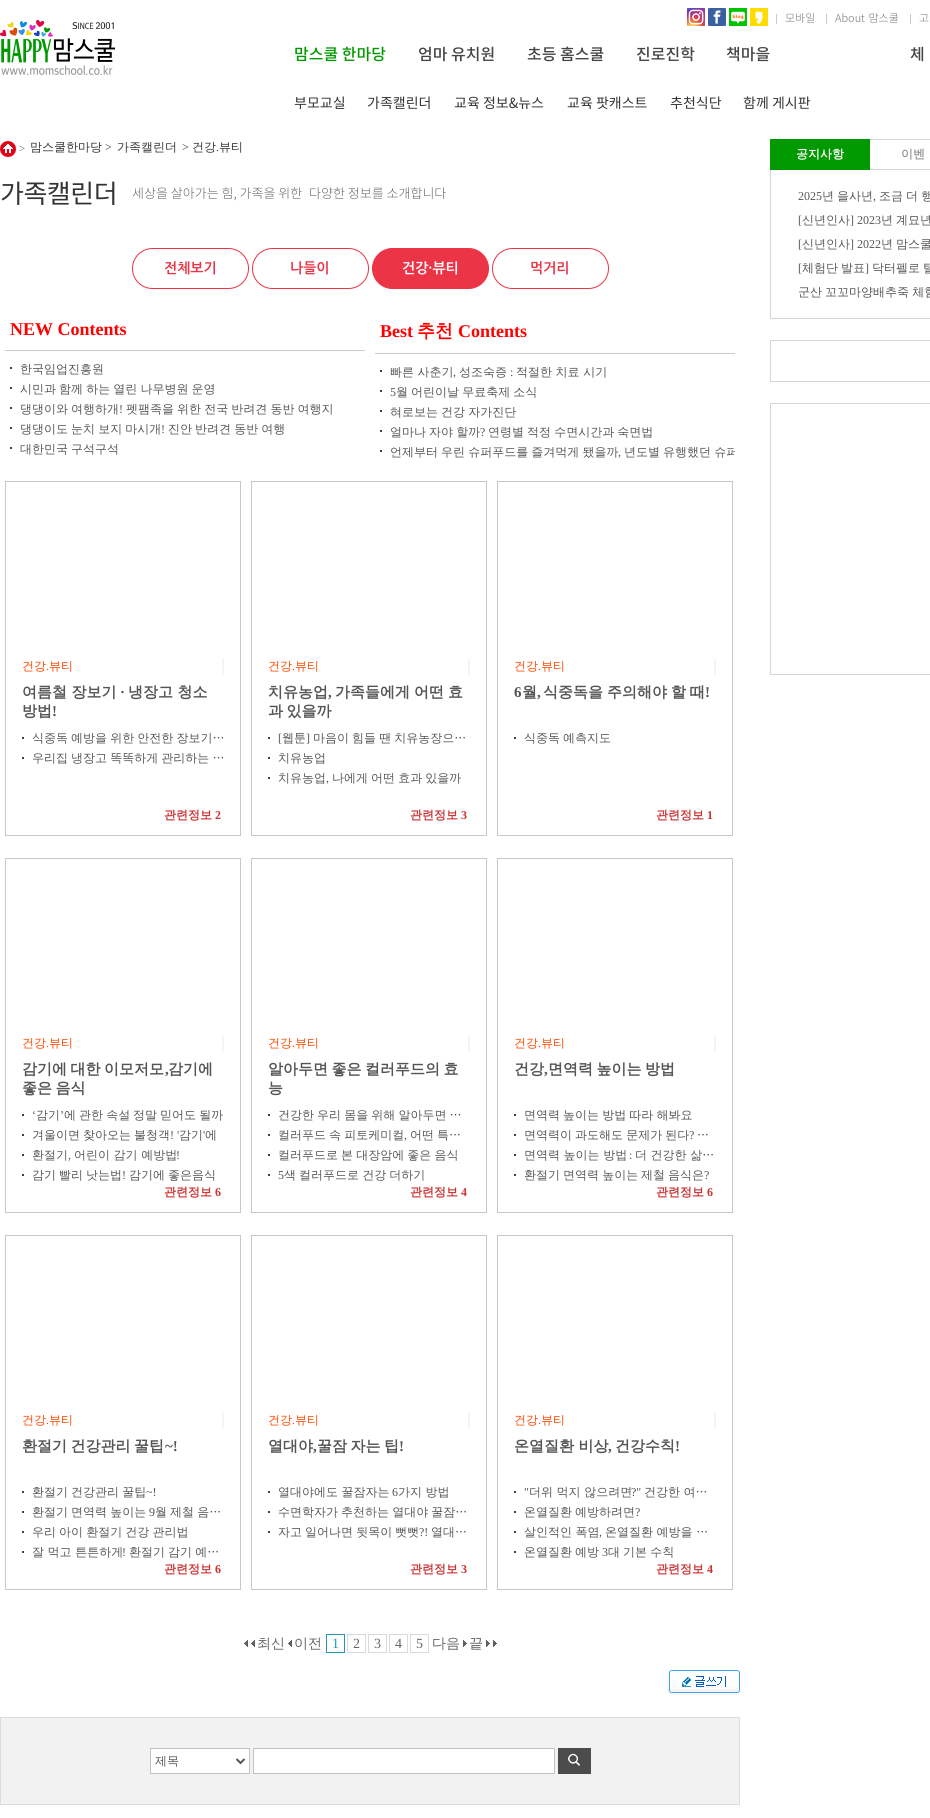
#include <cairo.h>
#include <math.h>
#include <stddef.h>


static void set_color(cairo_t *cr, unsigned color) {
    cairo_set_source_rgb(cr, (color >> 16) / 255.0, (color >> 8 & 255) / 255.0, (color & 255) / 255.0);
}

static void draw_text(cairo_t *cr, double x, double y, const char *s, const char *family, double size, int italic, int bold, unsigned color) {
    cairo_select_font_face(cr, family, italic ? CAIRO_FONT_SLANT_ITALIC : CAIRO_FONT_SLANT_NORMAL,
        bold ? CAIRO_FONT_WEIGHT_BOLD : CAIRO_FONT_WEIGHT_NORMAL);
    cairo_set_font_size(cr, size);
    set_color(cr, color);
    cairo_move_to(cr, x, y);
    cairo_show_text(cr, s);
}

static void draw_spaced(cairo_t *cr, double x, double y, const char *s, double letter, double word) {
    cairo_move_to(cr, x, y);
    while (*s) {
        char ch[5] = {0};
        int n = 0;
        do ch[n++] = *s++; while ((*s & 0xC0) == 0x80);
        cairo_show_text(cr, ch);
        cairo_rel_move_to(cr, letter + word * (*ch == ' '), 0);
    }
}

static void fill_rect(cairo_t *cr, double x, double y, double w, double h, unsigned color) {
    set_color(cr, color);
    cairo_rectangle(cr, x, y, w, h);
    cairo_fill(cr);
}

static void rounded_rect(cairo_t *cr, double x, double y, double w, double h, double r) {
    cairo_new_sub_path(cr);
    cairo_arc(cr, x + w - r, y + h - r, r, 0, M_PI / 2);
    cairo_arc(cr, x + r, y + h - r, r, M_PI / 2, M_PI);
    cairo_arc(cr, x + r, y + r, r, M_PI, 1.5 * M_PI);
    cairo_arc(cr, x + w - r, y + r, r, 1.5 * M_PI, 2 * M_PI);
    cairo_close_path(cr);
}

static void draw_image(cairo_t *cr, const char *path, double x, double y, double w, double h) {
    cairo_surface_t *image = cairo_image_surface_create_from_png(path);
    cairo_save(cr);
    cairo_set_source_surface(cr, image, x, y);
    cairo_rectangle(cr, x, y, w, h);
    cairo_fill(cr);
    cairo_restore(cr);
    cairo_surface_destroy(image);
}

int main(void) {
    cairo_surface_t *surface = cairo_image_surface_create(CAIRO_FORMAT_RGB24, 930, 1818);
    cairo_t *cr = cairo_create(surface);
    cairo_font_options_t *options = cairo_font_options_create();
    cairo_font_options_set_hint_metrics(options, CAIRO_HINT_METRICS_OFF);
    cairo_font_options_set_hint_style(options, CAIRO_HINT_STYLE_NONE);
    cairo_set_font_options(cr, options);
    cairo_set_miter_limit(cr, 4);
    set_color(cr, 0xFFFFFF);
    cairo_paint(cr);
    draw_image(cr, "assets/img1.png", 687, 8, 18, 18);
    draw_image(cr, "assets/img2.png", 708, 8, 18, 18);
    draw_image(cr, "assets/img3.png", 729, 8, 18, 18);
    draw_image(cr, "assets/img4.png", 750, 8, 18, 18);
    fill_rect(cr, 776, 14, 1, 10, 0xC9C9C9);
    draw_text(cr, 785, 22, "모바일", "Noto Sans KR Light", 11, 0, 0, 0x737373);
    fill_rect(cr, 826, 14, 1, 10, 0xC9C9C9);
    set_color(cr, 0x737373);
    draw_spaced(cr, 835, 22, "About 맘스쿨", 0, 1);
    fill_rect(cr, 910, 14, 1, 10, 0xC9C9C9);
    draw_text(cr, 919, 22, "고", "Noto Sans KR Light", 11, 0, 0, 0x737373);
    draw_image(cr, "assets/img5.png", 0, 20, 115, 55);
    draw_text(cr, 294, 60, "맘스쿨 한마당", "Noto Sans KR Medium", 16, 0, 0, 0x009900);
    draw_text(cr, 294, 108, "부모교실", "Noto Sans KR", 14, 0, 0, 0x333333);
    draw_text(cr, 367, 108, "가족캘린더", "Noto Sans KR", 14, 0, 0, 0x333333);
    draw_text(cr, 454, 108, "교육 정보&뉴스", "Noto Sans KR", 14, 0, 0, 0x333333);
    draw_text(cr, 567, 108, "교육 팟캐스트", "Noto Sans KR", 14, 0, 0, 0x333333);
    draw_text(cr, 670, 108, "추천식단", "Noto Sans KR", 14, 0, 0, 0x333333);
    draw_text(cr, 743, 108, "함께 게시판", "Noto Sans KR", 14, 0, 0, 0x333333);
    draw_text(cr, 418, 60, "엄마 유치원", "Noto Sans KR Medium", 16, 0, 0, 0x444444);
    draw_text(cr, 527, 60, "초등 홈스쿨", "Noto Sans KR Medium", 16, 0, 0, 0x444444);
    draw_text(cr, 636, 60, "진로진학", "Noto Sans KR Medium", 16, 0, 0, 0x444444);
    draw_text(cr, 726, 60, "책마을", "Noto Sans KR Medium", 16, 0, 0, 0x444444);
    draw_text(cr, 910, 60, "체", "Noto Sans KR Medium", 16, 0, 0, 0x444444);
    draw_image(cr, "assets/img6.png", 0, 141, 16, 16);
    draw_text(cr, 19, 152, ">", "Liberation Serif", 11, 0, 0, 0x666666);
    draw_text(cr, 30, 151, "맘스쿨한마당", "WenQuanYi Zen Hei Medium", 12, 0, 0, 0x333333);
    draw_text(cr, 105, 151, ">", "Liberation Serif", 12, 0, 0, 0x333333);
    draw_text(cr, 117, 151, "가족캘린더", "WenQuanYi Zen Hei Medium", 12, 0, 0, 0x333333);
    draw_text(cr, 182, 151, ">", "Liberation Serif", 12, 0, 0, 0x333333);
    draw_text(cr, 192, 151, "건강", "WenQuanYi Zen Hei Medium", 12, 0, 0, 0x333333);
    draw_text(cr, 219, 151, "뷰티", "WenQuanYi Zen Hei Medium", 12, 0, 0, 0x333333);
    draw_text(cr, 216, 151, ".", "Liberation Serif", 12, 0, 0, 0x333333);
    cairo_select_font_face(cr, "Noto Sans KR", CAIRO_FONT_SLANT_NORMAL, CAIRO_FONT_WEIGHT_NORMAL);
    cairo_set_font_size(cr, 26);
    draw_spaced(cr, 0, 203, "가족캘린더", -0.5, 0);
    draw_text(cr, 132, 198, "세상을 살아가는 힘, 가족을 위한", "Noto Sans KR Light", 13, 0, 0, 0x666666);
    draw_text(cr, 309, 198, "다양한 정보를 소개합니다", "Noto Sans KR Light", 13, 0, 0, 0x666666);
    rounded_rect(cr, 132.5, 248.5, 116, 40, 20);
    set_color(cr, 0xEB3446);
    cairo_set_line_width(cr, 1);
    cairo_stroke(cr);
    draw_text(cr, 164, 273, "전체보기", "NanumGothic", 14, 0, 1, 0xEB3446);
    rounded_rect(cr, 252.5, 248.5, 116, 40, 20);
    cairo_stroke(cr);
    draw_text(cr, 290, 273, "나들이", "NanumGothic", 14, 0, 1, 0xEB3446);
    rounded_rect(cr, 372.5, 248.5, 116, 40, 20);
    cairo_fill_preserve(cr);
    cairo_stroke(cr);
    draw_text(cr, 402, 273, "건강·뷰티", "NanumGothic", 14, 0, 1, 0xFFFFFF);
    rounded_rect(cr, 492.5, 248.5, 116, 40, 20);
    set_color(cr, 0xEB3446);
    cairo_stroke(cr);
    draw_text(cr, 530, 273, "먹거리", "NanumGothic", 14, 0, 1, 0xEB3446);
    fill_rect(cr, 5, 350, 360, 1, 0xCCCCCC);
    draw_text(cr, 10, 335, "NEW Contents", "Liberation Serif", 18, 0, 1, 0xFF0000);
    fill_rect(cr, 10, 367, 2, 2, 0x414141);
    draw_text(cr, 20, 373, "한국임업진흥원", "WenQuanYi Zen Hei Medium", 12, 0, 0, 0x555555);
    fill_rect(cr, 10, 387, 2, 2, 0x414141);
    set_color(cr, 0x555555);
    draw_spaced(cr, 20, 393, "시민과 함께 하는 열린 나무병원 운영", 0, -0.5);
    fill_rect(cr, 10, 407, 2, 2, 0x414141);
    set_color(cr, 0x555555);
    draw_spaced(cr, 20, 413, "댕댕이와 여행하개", 0, -0.5);
    draw_text(cr, 119, 413, "!", "Liberation Serif", 12, 0, 0, 0x555555);
    cairo_select_font_face(cr, "WenQuanYi Zen Hei Medium", CAIRO_FONT_SLANT_NORMAL, CAIRO_FONT_WEIGHT_NORMAL);
    draw_spaced(cr, 126, 413, "펫팸족을 위한 전국 반려견 동반 여행지", 0, -0.5);
    fill_rect(cr, 10, 427, 2, 2, 0x414141);
    set_color(cr, 0x555555);
    draw_spaced(cr, 20, 433, "댕댕이도 눈치 보지 마시개", 0, -0.5);
    draw_text(cr, 161, 433, "!", "Liberation Serif", 12, 0, 0, 0x555555);
    cairo_select_font_face(cr, "WenQuanYi Zen Hei Medium", CAIRO_FONT_SLANT_NORMAL, CAIRO_FONT_WEIGHT_NORMAL);
    draw_spaced(cr, 168, 433, "진안 반려견 동반 여행", 0, -0.5);
    fill_rect(cr, 10, 447, 2, 2, 0x414141);
    set_color(cr, 0x555555);
    draw_spaced(cr, 20, 453, "대한민국 구석구석", 0, -0.5);
    fill_rect(cr, 375, 353, 360, 1, 0xCCCCCC);
    draw_text(cr, 380, 337, "Best", "Liberation Serif", 18, 0, 1, 0xFF0000);
    draw_text(cr, 417, 337, "추천", "WenQuanYi Zen Hei", 18, 0, 1, 0xFF0000);
    draw_text(cr, 458, 337, "Contents", "Liberation Serif", 18, 0, 1, 0xFF0000);
    fill_rect(cr, 380, 370, 2, 2, 0x414141);
    draw_text(cr, 390, 376, "빠른 사춘기", "WenQuanYi Zen Hei Medium", 12, 0, 0, 0x555555);
    draw_text(cr, 453, 376, ",", "Liberation Serif", 12, 0, 0, 0x555555);
    draw_text(cr, 459, 376, "성조숙증", "WenQuanYi Zen Hei Medium", 12, 0, 0, 0x555555);
    draw_text(cr, 510, 376, ":", "Liberation Serif", 12, 0, 0, 0x555555);
    draw_text(cr, 516, 376, "적절한 치료 시기", "WenQuanYi Zen Hei Medium", 12, 0, 0, 0x555555);
    fill_rect(cr, 380, 390, 2, 2, 0x414141);
    draw_text(cr, 390, 396, "5", "Liberation Serif", 12, 0, 0, 0x555555);
    cairo_select_font_face(cr, "WenQuanYi Zen Hei Medium", CAIRO_FONT_SLANT_NORMAL, CAIRO_FONT_WEIGHT_NORMAL);
    draw_spaced(cr, 396, 396, "월 어린이날 무료축제 소식", 0, -0.5);
    fill_rect(cr, 380, 410, 2, 2, 0x414141);
    set_color(cr, 0x555555);
    draw_spaced(cr, 390, 416, "혀로보는 건강 자가진단", 0, -0.5);
    fill_rect(cr, 380, 430, 2, 2, 0x414141);
    set_color(cr, 0x555555);
    draw_spaced(cr, 390, 436, "얼마나 자야 할까", 0, -0.5);
    draw_text(cr, 480, 436, "?", "Liberation Serif", 12, 0, 0, 0x555555);
    cairo_select_font_face(cr, "WenQuanYi Zen Hei Medium", CAIRO_FONT_SLANT_NORMAL, CAIRO_FONT_WEIGHT_NORMAL);
    draw_spaced(cr, 488, 436, "연령별 적정 수면시간과 숙면법", 0, -0.5);
    fill_rect(cr, 380, 450, 2, 2, 0x414141);
    set_color(cr, 0x555555);
    draw_spaced(cr, 390, 456, "언제부터 우린 슈퍼푸드를 즐겨먹게 됐을까", 0, -0.5);
    draw_text(cr, 618, 456, ",", "Liberation Serif", 12, 0, 0, 0x555555);
    cairo_save(cr);
    cairo_rectangle(cr, 380, 444, 355, 15);
    cairo_clip(cr);
    cairo_select_font_face(cr, "WenQuanYi Zen Hei Medium", CAIRO_FONT_SLANT_NORMAL, CAIRO_FONT_WEIGHT_NORMAL);
    draw_spaced(cr, 624, 456, "년도별 유행했던 슈퍼", 0, -0.5);
    cairo_restore(cr);
    cairo_rectangle(cr, 5.5, 481.5, 235, 354);
    set_color(cr, 0xC7C7C7);
    cairo_stroke(cr);
    fill_rect(cr, 222, 658, 2, 17, 0xF5F5F5);
    draw_text(cr, 22, 670, "건강", "WenQuanYi Zen Hei Medium", 12, 0, 0, 0xFF4800);
    draw_text(cr, 46, 670, ".", "Liberation Serif", 12, 0, 0, 0xFF4800);
    draw_text(cr, 49, 670, "뷰티", "WenQuanYi Zen Hei Medium", 12, 0, 0, 0xFF4800);
    draw_text(cr, 22, 697, "여름철 장보기", "WenQuanYi Zen Hei", 15, 0, 1, 0x555555);
    draw_text(cr, 120, 697, "·", "Liberation Serif", 15, 0, 1, 0x555555);
    draw_text(cr, 128, 697, "냉장고 청소", "WenQuanYi Zen Hei", 15, 0, 1, 0x555555);
    draw_text(cr, 22, 716, "방법", "WenQuanYi Zen Hei", 15, 0, 1, 0x555555);
    draw_text(cr, 52, 716, "!", "Liberation Serif", 15, 0, 1, 0x555555);
    fill_rect(cr, 22, 737, 2, 2, 0x414141);
    cairo_select_font_face(cr, "WenQuanYi Zen Hei Medium", CAIRO_FONT_SLANT_NORMAL, CAIRO_FONT_WEIGHT_NORMAL);
    cairo_set_font_size(cr, 12);
    set_color(cr, 0x555555);
    draw_spaced(cr, 32, 742, "식중독 예방을 위한 안전한 장보기…", 0, -0.5);
    fill_rect(cr, 22, 757, 2, 2, 0x414141);
    set_color(cr, 0x555555);
    draw_spaced(cr, 32, 762, "우리집 냉장고 똑똑하게 관리하는 …", 0, -0.5);
    draw_text(cr, 164, 819, "관련정보", "WenQuanYi Zen Hei", 12, 0, 1, 0xCC3333);
    draw_text(cr, 215, 819, "2", "Liberation Serif", 12, 0, 1, 0xCC3333);
    cairo_rectangle(cr, 251.5, 481.5, 235, 354);
    set_color(cr, 0xC7C7C7);
    cairo_stroke(cr);
    fill_rect(cr, 468, 658, 2, 17, 0xF5F5F5);
    draw_text(cr, 268, 670, "건강", "WenQuanYi Zen Hei Medium", 12, 0, 0, 0xFF4800);
    draw_text(cr, 292, 670, ".", "Liberation Serif", 12, 0, 0, 0xFF4800);
    draw_text(cr, 295, 670, "뷰티", "WenQuanYi Zen Hei Medium", 12, 0, 0, 0xFF4800);
    draw_text(cr, 268, 697, "치유농업", "WenQuanYi Zen Hei", 15, 0, 1, 0x555555);
    draw_text(cr, 328, 697, ",", "Liberation Serif", 15, 0, 1, 0x555555);
    cairo_select_font_face(cr, "WenQuanYi Zen Hei", CAIRO_FONT_SLANT_NORMAL, CAIRO_FONT_WEIGHT_BOLD);
    draw_spaced(cr, 335, 697, "가족들에게 어떤 효", 0, -0.5);
    draw_spaced(cr, 268, 716, "과 있을까", 0, -1);
    fill_rect(cr, 268, 737, 2, 2, 0x414141);
    draw_text(cr, 278, 742, "[", "Liberation Serif", 12, 0, 0, 0x555555);
    draw_text(cr, 282, 742, "웹툰", "WenQuanYi Zen Hei Medium", 12, 0, 0, 0x555555);
    draw_text(cr, 306, 742, "]", "Liberation Serif", 12, 0, 0, 0x555555);
    cairo_select_font_face(cr, "WenQuanYi Zen Hei Medium", CAIRO_FONT_SLANT_NORMAL, CAIRO_FONT_WEIGHT_NORMAL);
    draw_spaced(cr, 313, 742, "마음이 힘들 땐 치유농장으…", 0, -0.5);
    fill_rect(cr, 268, 757, 2, 2, 0x414141);
    draw_text(cr, 278, 762, "치유농업", "WenQuanYi Zen Hei Medium", 12, 0, 0, 0x555555);
    fill_rect(cr, 268, 777, 2, 2, 0x414141);
    draw_text(cr, 278, 782, "치유농업", "WenQuanYi Zen Hei Medium", 12, 0, 0, 0x555555);
    draw_text(cr, 326, 782, ",", "Liberation Serif", 12, 0, 0, 0x555555);
    cairo_select_font_face(cr, "WenQuanYi Zen Hei Medium", CAIRO_FONT_SLANT_NORMAL, CAIRO_FONT_WEIGHT_NORMAL);
    draw_spaced(cr, 332, 782, "나에게 어떤 효과 있을까", 0, -0.5);
    draw_text(cr, 410, 819, "관련정보", "WenQuanYi Zen Hei", 12, 0, 1, 0xCC3333);
    draw_text(cr, 461, 819, "3", "Liberation Serif", 12, 0, 1, 0xCC3333);
    cairo_rectangle(cr, 497.5, 481.5, 235, 354);
    set_color(cr, 0xC7C7C7);
    cairo_stroke(cr);
    fill_rect(cr, 714, 658, 2, 17, 0xF5F5F5);
    draw_text(cr, 514, 670, "건강", "WenQuanYi Zen Hei Medium", 12, 0, 0, 0xFF4800);
    draw_text(cr, 538, 670, ".", "Liberation Serif", 12, 0, 0, 0xFF4800);
    draw_text(cr, 541, 670, "뷰티", "WenQuanYi Zen Hei Medium", 12, 0, 0, 0xFF4800);
    draw_text(cr, 514, 697, "6", "Liberation Serif", 15, 0, 1, 0x555555);
    draw_text(cr, 522, 697, "월", "WenQuanYi Zen Hei", 15, 0, 1, 0x555555);
    draw_text(cr, 537, 697, ",", "Liberation Serif", 15, 0, 1, 0x555555);
    cairo_select_font_face(cr, "WenQuanYi Zen Hei", CAIRO_FONT_SLANT_NORMAL, CAIRO_FONT_WEIGHT_BOLD);
    draw_spaced(cr, 543, 697, "식중독을 주의해야 할 때", 0, -0.5);
    draw_text(cr, 705, 697, "!", "Liberation Serif", 15, 0, 1, 0x555555);
    fill_rect(cr, 514, 737, 2, 2, 0x414141);
    cairo_select_font_face(cr, "WenQuanYi Zen Hei Medium", CAIRO_FONT_SLANT_NORMAL, CAIRO_FONT_WEIGHT_NORMAL);
    cairo_set_font_size(cr, 12);
    set_color(cr, 0x555555);
    draw_spaced(cr, 524, 742, "식중독 예측지도", 0, -0.5);
    draw_text(cr, 656, 819, "관련정보", "WenQuanYi Zen Hei", 12, 0, 1, 0xCC3333);
    draw_text(cr, 707, 819, "1", "Liberation Serif", 12, 0, 1, 0xCC3333);
    cairo_rectangle(cr, 5.5, 858.5, 235, 354);
    set_color(cr, 0xC7C7C7);
    cairo_stroke(cr);
    fill_rect(cr, 222, 1035, 2, 17, 0xF5F5F5);
    draw_text(cr, 22, 1047, "건강", "WenQuanYi Zen Hei Medium", 12, 0, 0, 0xFF4800);
    draw_text(cr, 46, 1047, ".", "Liberation Serif", 12, 0, 0, 0xFF4800);
    draw_text(cr, 49, 1047, "뷰티", "WenQuanYi Zen Hei Medium", 12, 0, 0, 0xFF4800);
    cairo_select_font_face(cr, "WenQuanYi Zen Hei", CAIRO_FONT_SLANT_NORMAL, CAIRO_FONT_WEIGHT_BOLD);
    cairo_set_font_size(cr, 15);
    set_color(cr, 0x555555);
    draw_spaced(cr, 22, 1074, "감기에 대한 이모저모", 0, -1);
    draw_text(cr, 165, 1074, ",", "Liberation Serif", 15, 0, 1, 0x555555);
    draw_text(cr, 168, 1074, "감기에", "WenQuanYi Zen Hei", 15, 0, 1, 0x555555);
    draw_spaced(cr, 22, 1093, "좋은 음식", 0, -1);
    fill_rect(cr, 22, 1114, 2, 2, 0x414141);
    draw_text(cr, 32, 1119, "‘", "Liberation Serif", 12, 0, 0, 0x555555);
    draw_text(cr, 36, 1119, "감기", "WenQuanYi Zen Hei Medium", 12, 0, 0, 0x555555);
    draw_text(cr, 60, 1119, "’", "Liberation Serif", 12, 0, 0, 0x555555);
    cairo_select_font_face(cr, "WenQuanYi Zen Hei Medium", CAIRO_FONT_SLANT_NORMAL, CAIRO_FONT_WEIGHT_NORMAL);
    draw_spaced(cr, 64, 1119, "에 관한 속설", 0, -0.5);
    draw_spaced(cr, 133, 1119, "정말 믿어도 될까", 0, -0.5);
    fill_rect(cr, 22, 1134, 2, 2, 0x414141);
    draw_text(cr, 32, 1139, "겨울이면", "WenQuanYi Zen Hei Medium", 12, 0, 0, 0x555555);
    draw_text(cr, 83, 1139, "찾아오는", "WenQuanYi Zen Hei Medium", 12, 0, 0, 0x555555);
    draw_text(cr, 134, 1139, "불청객", "WenQuanYi Zen Hei Medium", 12, 0, 0, 0x555555);
    draw_text(cr, 170, 1139, "! '", "Liberation Serif", 12, 0, 0, 0x555555);
    draw_text(cr, 179, 1139, "감기", "WenQuanYi Zen Hei Medium", 12, 0, 0, 0x555555);
    draw_text(cr, 203, 1139, "'", "Liberation Serif", 12, 0, 0, 0x555555);
    draw_text(cr, 205, 1139, "에", "WenQuanYi Zen Hei Medium", 12, 0, 0, 0x555555);
    fill_rect(cr, 22, 1154, 2, 2, 0x414141);
    draw_text(cr, 32, 1159, "환절기", "WenQuanYi Zen Hei Medium", 12, 0, 0, 0x555555);
    draw_text(cr, 68, 1159, ",", "Liberation Serif", 12, 0, 0, 0x555555);
    draw_text(cr, 74, 1159, "어린이 감기 예방법", "WenQuanYi Zen Hei Medium", 12, 0, 0, 0x555555);
    draw_text(cr, 176, 1159, "!", "Liberation Serif", 12, 0, 0, 0x555555);
    fill_rect(cr, 22, 1174, 2, 2, 0x414141);
    draw_text(cr, 32, 1179, "감기", "WenQuanYi Zen Hei Medium", 12, 0, 0, 0x555555);
    draw_text(cr, 59, 1179, "빨리", "WenQuanYi Zen Hei Medium", 12, 0, 0, 0x555555);
    draw_text(cr, 86, 1179, "낫는법", "WenQuanYi Zen Hei Medium", 12, 0, 0, 0x555555);
    draw_text(cr, 122, 1179, "!", "Liberation Serif", 12, 0, 0, 0x555555);
    draw_text(cr, 129, 1179, "감기에", "WenQuanYi Zen Hei Medium", 12, 0, 0, 0x555555);
    draw_text(cr, 168, 1179, "좋은음식", "WenQuanYi Zen Hei Medium", 12, 0, 0, 0x555555);
    draw_text(cr, 164, 1196, "관련정보", "WenQuanYi Zen Hei", 12, 0, 1, 0xCC3333);
    draw_text(cr, 215, 1196, "6", "Liberation Serif", 12, 0, 1, 0xCC3333);
    cairo_rectangle(cr, 251.5, 858.5, 235, 354);
    set_color(cr, 0xC7C7C7);
    cairo_stroke(cr);
    fill_rect(cr, 468, 1035, 2, 17, 0xF5F5F5);
    draw_text(cr, 268, 1047, "건강", "WenQuanYi Zen Hei Medium", 12, 0, 0, 0xFF4800);
    draw_text(cr, 292, 1047, ".", "Liberation Serif", 12, 0, 0, 0xFF4800);
    draw_text(cr, 295, 1047, "뷰티", "WenQuanYi Zen Hei Medium", 12, 0, 0, 0xFF4800);
    cairo_select_font_face(cr, "WenQuanYi Zen Hei", CAIRO_FONT_SLANT_NORMAL, CAIRO_FONT_WEIGHT_BOLD);
    cairo_set_font_size(cr, 15);
    set_color(cr, 0x555555);
    draw_spaced(cr, 268, 1074, "알아두면 좋은 컬러푸드의 효", 0, -1);
    draw_text(cr, 268, 1093, "능", "WenQuanYi Zen Hei", 15, 0, 1, 0x555555);
    fill_rect(cr, 268, 1114, 2, 2, 0x414141);
    cairo_select_font_face(cr, "WenQuanYi Zen Hei Medium", CAIRO_FONT_SLANT_NORMAL, CAIRO_FONT_WEIGHT_NORMAL);
    cairo_set_font_size(cr, 12);
    set_color(cr, 0x555555);
    draw_spaced(cr, 278, 1119, "건강한 우리 몸을 위해 알아두면 …", 0, -0.5);
    fill_rect(cr, 268, 1134, 2, 2, 0x414141);
    set_color(cr, 0x555555);
    draw_spaced(cr, 278, 1139, "컬러푸드 속 피토케미컬", 0, -0.5);
    draw_text(cr, 404, 1139, ",", "Liberation Serif", 12, 0, 0, 0x555555);
    cairo_select_font_face(cr, "WenQuanYi Zen Hei Medium", CAIRO_FONT_SLANT_NORMAL, CAIRO_FONT_WEIGHT_NORMAL);
    draw_spaced(cr, 410, 1139, "어떤 특…", 0, -0.5);
    fill_rect(cr, 268, 1154, 2, 2, 0x414141);
    set_color(cr, 0x555555);
    draw_spaced(cr, 278, 1159, "컬러푸드로 본 대장암에 좋은 음식", 0, -0.5);
    fill_rect(cr, 268, 1174, 2, 2, 0x414141);
    draw_text(cr, 278, 1179, "5", "Liberation Serif", 12, 0, 0, 0x555555);
    cairo_select_font_face(cr, "WenQuanYi Zen Hei Medium", CAIRO_FONT_SLANT_NORMAL, CAIRO_FONT_WEIGHT_NORMAL);
    draw_spaced(cr, 284, 1179, "색 컬러푸드로 건강 더하기", 0, -0.5);
    draw_text(cr, 410, 1196, "관련정보", "WenQuanYi Zen Hei", 12, 0, 1, 0xCC3333);
    draw_text(cr, 461, 1196, "4", "Liberation Serif", 12, 0, 1, 0xCC3333);
    cairo_rectangle(cr, 497.5, 858.5, 235, 354);
    set_color(cr, 0xC7C7C7);
    cairo_stroke(cr);
    fill_rect(cr, 714, 1035, 2, 17, 0xF5F5F5);
    draw_text(cr, 514, 1047, "건강", "WenQuanYi Zen Hei Medium", 12, 0, 0, 0xFF4800);
    draw_text(cr, 538, 1047, ".", "Liberation Serif", 12, 0, 0, 0xFF4800);
    draw_text(cr, 541, 1047, "뷰티", "WenQuanYi Zen Hei Medium", 12, 0, 0, 0xFF4800);
    draw_text(cr, 514, 1074, "건강", "WenQuanYi Zen Hei", 15, 0, 1, 0x555555);
    draw_text(cr, 544, 1074, ",", "Liberation Serif", 15, 0, 1, 0x555555);
    cairo_select_font_face(cr, "WenQuanYi Zen Hei", CAIRO_FONT_SLANT_NORMAL, CAIRO_FONT_WEIGHT_BOLD);
    draw_spaced(cr, 548, 1074, "면역력 높이는 방법", 0, -1);
    fill_rect(cr, 514, 1114, 2, 2, 0x414141);
    cairo_select_font_face(cr, "WenQuanYi Zen Hei Medium", CAIRO_FONT_SLANT_NORMAL, CAIRO_FONT_WEIGHT_NORMAL);
    cairo_set_font_size(cr, 12);
    set_color(cr, 0x555555);
    draw_spaced(cr, 524, 1119, "면역력 높이는 방법 따라 해봐요", 0, -0.5);
    fill_rect(cr, 514, 1134, 2, 2, 0x414141);
    set_color(cr, 0x555555);
    draw_spaced(cr, 524, 1139, "면역력이 과도해도 문제가 된다", 0, -0.5);
    draw_text(cr, 689, 1139, "?", "Liberation Serif", 12, 0, 0, 0x555555);
    cairo_select_font_face(cr, "WenQuanYi Zen Hei Medium", CAIRO_FONT_SLANT_NORMAL, CAIRO_FONT_WEIGHT_NORMAL);
    draw_spaced(cr, 697, 1139, "…", 0, -0.5);
    fill_rect(cr, 514, 1154, 2, 2, 0x414141);
    draw_text(cr, 524, 1159, "면역력 높이는 방법", "WenQuanYi Zen Hei Medium", 12, 0, 0, 0x555555);
    draw_text(cr, 629, 1159, ":", "Liberation Serif", 12, 0, 0, 0x555555);
    draw_text(cr, 635, 1159, "더 건강한 삶…", "WenQuanYi Zen Hei Medium", 12, 0, 0, 0x555555);
    fill_rect(cr, 514, 1174, 2, 2, 0x414141);
    set_color(cr, 0x555555);
    draw_spaced(cr, 524, 1179, "환절기 면역력 높이는", 0, -0.5);
    draw_spaced(cr, 641, 1179, "제철 음식은", 0, -0.5);
    draw_text(cr, 704, 1179, "?", "Liberation Serif", 12, 0, 0, 0x555555);
    draw_text(cr, 656, 1196, "관련정보", "WenQuanYi Zen Hei", 12, 0, 1, 0xCC3333);
    draw_text(cr, 707, 1196, "6", "Liberation Serif", 12, 0, 1, 0xCC3333);
    cairo_rectangle(cr, 5.5, 1235.5, 235, 354);
    set_color(cr, 0xC7C7C7);
    cairo_stroke(cr);
    fill_rect(cr, 222, 1412, 2, 17, 0xF5F5F5);
    draw_text(cr, 22, 1424, "건강", "WenQuanYi Zen Hei Medium", 12, 0, 0, 0xFF4800);
    draw_text(cr, 46, 1424, ".", "Liberation Serif", 12, 0, 0, 0xFF4800);
    draw_text(cr, 49, 1424, "뷰티", "WenQuanYi Zen Hei Medium", 12, 0, 0, 0xFF4800);
    cairo_select_font_face(cr, "WenQuanYi Zen Hei", CAIRO_FONT_SLANT_NORMAL, CAIRO_FONT_WEIGHT_BOLD);
    cairo_set_font_size(cr, 15);
    set_color(cr, 0x555555);
    draw_spaced(cr, 22, 1451, "환절기 건강관리 꿀팁", 0, -1);
    draw_text(cr, 165, 1451, "~!", "Liberation Serif", 15, 0, 1, 0x555555);
    fill_rect(cr, 22, 1491, 2, 2, 0x414141);
    cairo_select_font_face(cr, "WenQuanYi Zen Hei Medium", CAIRO_FONT_SLANT_NORMAL, CAIRO_FONT_WEIGHT_NORMAL);
    cairo_set_font_size(cr, 12);
    set_color(cr, 0x555555);
    draw_spaced(cr, 32, 1496, "환절기 건강관리 꿀팁", 0, -0.5);
    draw_text(cr, 146, 1496, "~!", "Liberation Serif", 12, 0, 0, 0x555555);
    fill_rect(cr, 22, 1511, 2, 2, 0x414141);
    cairo_select_font_face(cr, "WenQuanYi Zen Hei Medium", CAIRO_FONT_SLANT_NORMAL, CAIRO_FONT_WEIGHT_NORMAL);
    set_color(cr, 0x555555);
    draw_spaced(cr, 32, 1516, "환절기 면역력 높이는", 0, -0.5);
    draw_text(cr, 149, 1516, "9", "Liberation Serif", 12, 0, 0, 0x555555);
    cairo_select_font_face(cr, "WenQuanYi Zen Hei Medium", CAIRO_FONT_SLANT_NORMAL, CAIRO_FONT_WEIGHT_NORMAL);
    draw_spaced(cr, 155, 1516, "월 제철 음…", 0, -0.5);
    fill_rect(cr, 22, 1531, 2, 2, 0x414141);
    set_color(cr, 0x555555);
    draw_spaced(cr, 32, 1536, "우리 아이 환절기 건강 관리법", 0, -0.5);
    fill_rect(cr, 22, 1551, 2, 2, 0x414141);
    draw_text(cr, 32, 1556, "잘 먹고 튼튼하게", "WenQuanYi Zen Hei Medium", 12, 0, 0, 0x555555);
    draw_text(cr, 122, 1556, "!", "Liberation Serif", 12, 0, 0, 0x555555);
    cairo_select_font_face(cr, "WenQuanYi Zen Hei Medium", CAIRO_FONT_SLANT_NORMAL, CAIRO_FONT_WEIGHT_NORMAL);
    draw_spaced(cr, 129, 1556, "환절기 감기 예…", 0, -0.5);
    draw_text(cr, 164, 1573, "관련정보", "WenQuanYi Zen Hei", 12, 0, 1, 0xCC3333);
    draw_text(cr, 215, 1573, "6", "Liberation Serif", 12, 0, 1, 0xCC3333);
    cairo_rectangle(cr, 251.5, 1235.5, 235, 354);
    set_color(cr, 0xC7C7C7);
    cairo_stroke(cr);
    fill_rect(cr, 468, 1412, 2, 17, 0xF5F5F5);
    draw_text(cr, 268, 1424, "건강", "WenQuanYi Zen Hei Medium", 12, 0, 0, 0xFF4800);
    draw_text(cr, 292, 1424, ".", "Liberation Serif", 12, 0, 0, 0xFF4800);
    draw_text(cr, 295, 1424, "뷰티", "WenQuanYi Zen Hei Medium", 12, 0, 0, 0xFF4800);
    draw_text(cr, 268, 1451, "열대야", "WenQuanYi Zen Hei", 15, 0, 1, 0x555555);
    draw_text(cr, 313, 1451, ",", "Liberation Serif", 15, 0, 1, 0x555555);
    cairo_select_font_face(cr, "WenQuanYi Zen Hei", CAIRO_FONT_SLANT_NORMAL, CAIRO_FONT_WEIGHT_BOLD);
    draw_spaced(cr, 317, 1451, "꿀잠 자는 팁", 0, -1);
    draw_text(cr, 399, 1451, "!", "Liberation Serif", 15, 0, 1, 0x555555);
    fill_rect(cr, 268, 1491, 2, 2, 0x414141);
    draw_text(cr, 278, 1496, "열대야에도 꿀잠자는", "WenQuanYi Zen Hei Medium", 12, 0, 0, 0x555555);
    draw_text(cr, 392, 1496, "6", "Liberation Serif", 12, 0, 0, 0x555555);
    draw_text(cr, 398, 1496, "가지 방법", "WenQuanYi Zen Hei Medium", 12, 0, 0, 0x555555);
    fill_rect(cr, 268, 1511, 2, 2, 0x414141);
    set_color(cr, 0x555555);
    draw_spaced(cr, 278, 1516, "수면학자가 추천하는 열대야 꿀잠…", 0, -0.5);
    fill_rect(cr, 268, 1531, 2, 2, 0x414141);
    set_color(cr, 0x555555);
    draw_spaced(cr, 278, 1536, "자고 일어나면 뒷목이 뻣뻣", 0, -0.5);
    draw_text(cr, 419, 1536, "?!", "Liberation Serif", 12, 0, 0, 0x555555);
    cairo_select_font_face(cr, "WenQuanYi Zen Hei Medium", CAIRO_FONT_SLANT_NORMAL, CAIRO_FONT_WEIGHT_NORMAL);
    draw_spaced(cr, 431, 1536, "열대…", 0, -0.5);
    draw_text(cr, 410, 1573, "관련정보", "WenQuanYi Zen Hei", 12, 0, 1, 0xCC3333);
    draw_text(cr, 461, 1573, "3", "Liberation Serif", 12, 0, 1, 0xCC3333);
    cairo_rectangle(cr, 497.5, 1235.5, 235, 354);
    set_color(cr, 0xC7C7C7);
    cairo_stroke(cr);
    fill_rect(cr, 714, 1412, 2, 17, 0xF5F5F5);
    draw_text(cr, 514, 1424, "건강", "WenQuanYi Zen Hei Medium", 12, 0, 0, 0xFF4800);
    draw_text(cr, 538, 1424, ".", "Liberation Serif", 12, 0, 0, 0xFF4800);
    draw_text(cr, 541, 1424, "뷰티", "WenQuanYi Zen Hei Medium", 12, 0, 0, 0xFF4800);
    draw_text(cr, 514, 1451, "온열질환 비상", "WenQuanYi Zen Hei", 15, 0, 1, 0x555555);
    draw_text(cr, 608, 1451, ",", "Liberation Serif", 15, 0, 1, 0x555555);
    draw_text(cr, 615, 1451, "건강수칙", "WenQuanYi Zen Hei", 15, 0, 1, 0x555555);
    draw_text(cr, 675, 1451, "!", "Liberation Serif", 15, 0, 1, 0x555555);
    fill_rect(cr, 514, 1491, 2, 2, 0x414141);
    draw_text(cr, 524, 1496, "\"", "Liberation Serif", 12, 0, 0, 0x555555);
    draw_text(cr, 529, 1496, "더위 먹지 않으려면", "WenQuanYi Zen Hei Medium", 12, 0, 0, 0x555555);
    draw_text(cr, 631, 1496, "?\"", "Liberation Serif", 12, 0, 0, 0x555555);
    draw_text(cr, 644, 1496, "건강한 여…", "WenQuanYi Zen Hei Medium", 12, 0, 0, 0x555555);
    fill_rect(cr, 514, 1511, 2, 2, 0x414141);
    set_color(cr, 0x555555);
    draw_spaced(cr, 524, 1516, "온열질환 예방하려면", 0, -0.5);
    draw_text(cr, 635, 1516, "?", "Liberation Serif", 12, 0, 0, 0x555555);
    fill_rect(cr, 514, 1531, 2, 2, 0x414141);
    draw_text(cr, 524, 1536, "살인적인 폭염", "WenQuanYi Zen Hei Medium", 12, 0, 0, 0x555555);
    draw_text(cr, 599, 1536, ",", "Liberation Serif", 12, 0, 0, 0x555555);
    draw_text(cr, 605, 1536, "온열질환 예방을 …", "WenQuanYi Zen Hei Medium", 12, 0, 0, 0x555555);
    fill_rect(cr, 514, 1551, 2, 2, 0x414141);
    set_color(cr, 0x555555);
    draw_spaced(cr, 524, 1556, "온열질환 예방", 0, -0.5);
    draw_text(cr, 602, 1556, "3", "Liberation Serif", 12, 0, 0, 0x555555);
    cairo_select_font_face(cr, "WenQuanYi Zen Hei Medium", CAIRO_FONT_SLANT_NORMAL, CAIRO_FONT_WEIGHT_NORMAL);
    draw_spaced(cr, 608, 1556, "대 기본 수칙", 0, -0.5);
    draw_text(cr, 656, 1573, "관련정보", "WenQuanYi Zen Hei", 12, 0, 1, 0xCC3333);
    draw_text(cr, 707, 1573, "4", "Liberation Serif", 12, 0, 1, 0xCC3333);
    draw_image(cr, "assets/img7.png", 244, 1640, 11, 7);
    draw_text(cr, 257, 1648, "최신", "WenQuanYi Zen Hei Medium", 14, 0, 0, 0x666666);
    draw_image(cr, "assets/img8.png", 288, 1640, 4, 7);
    draw_text(cr, 294, 1648, "이전", "WenQuanYi Zen Hei Medium", 14, 0, 0, 0x666666);
    cairo_rectangle(cr, 326.5, 1634.5, 18, 18);
    set_color(cr, 0x2594BC);
    cairo_stroke(cr);
    draw_text(cr, 332, 1648, "1", "Liberation Serif", 14, 0, 0, 0x2594BC);
    cairo_rectangle(cr, 347.5, 1634.5, 18, 18);
    set_color(cr, 0xDADADB);
    cairo_stroke(cr);
    draw_text(cr, 353, 1648, "2", "Liberation Serif", 14, 0, 0, 0x666666);
    cairo_rectangle(cr, 368.5, 1634.5, 18, 18);
    set_color(cr, 0xDADADB);
    cairo_stroke(cr);
    draw_text(cr, 374, 1648, "3", "Liberation Serif", 14, 0, 0, 0x666666);
    cairo_rectangle(cr, 389.5, 1634.5, 18, 18);
    set_color(cr, 0xDADADB);
    cairo_stroke(cr);
    draw_text(cr, 395, 1648, "4", "Liberation Serif", 14, 0, 0, 0x666666);
    cairo_rectangle(cr, 410.5, 1634.5, 18, 18);
    set_color(cr, 0xDADADB);
    cairo_stroke(cr);
    draw_text(cr, 416, 1648, "5", "Liberation Serif", 14, 0, 0, 0x666666);
    draw_text(cr, 432, 1648, "다음", "WenQuanYi Zen Hei Medium", 14, 0, 0, 0x666666);
    draw_image(cr, "assets/img9.png", 463, 1640, 4, 7);
    draw_text(cr, 469, 1648, "끝", "WenQuanYi Zen Hei Medium", 14, 0, 0, 0x666666);
    draw_image(cr, "assets/img10.png", 486, 1640, 11, 7);
    draw_image(cr, "assets/img11.png", 667, 1670, 73, 25);
    set_color(cr, 0xF2F2F2);
    cairo_rectangle(cr, 0.5, 1717.5, 739, 87);
    cairo_fill_preserve(cr);
    set_color(cr, 0xDDDDDD);
    cairo_stroke(cr);
    set_color(cr, 0xFFFFFF);
    cairo_rectangle(cr, 150.5, 1748.5, 99, 25);
    cairo_fill_preserve(cr);
    set_color(cr, 0xC2C2C2);
    cairo_stroke(cr);
    cairo_new_path(cr);
    cairo_move_to(cr, 236.5, 1759);
    cairo_line_to(cr, 240.5, 1763);
    cairo_line_to(cr, 244.5, 1759);
    set_color(cr, 0x555555);
    cairo_set_line_width(cr, 2);
    cairo_stroke(cr);
    draw_text(cr, 155, 1765, "제목", "WenQuanYi Zen Hei Medium", 12, 0, 0, 0x555555);
    set_color(cr, 0xFFFFFF);
    cairo_rectangle(cr, 253.5, 1748.5, 301, 25);
    cairo_fill_preserve(cr);
    set_color(cr, 0xC2C2C2);
    cairo_set_line_width(cr, 1);
    cairo_stroke(cr);
    draw_image(cr, "assets/img12.png", 558, 1748, 33, 26);
    fill_rect(cr, 770, 318, 160, 1, 0xD5D5D5);
    fill_rect(cr, 770, 168, 1, 151, 0xD5D5D5);
    fill_rect(cr, 770, 139, 100, 31, 0x009900);
    draw_text(cr, 796, 158, "공지사항", "WenQuanYi Zen Hei", 12, 0, 1, 0xFFFFFF);
    fill_rect(cr, 870, 139, 60, 1, 0xD5D5D5);
    fill_rect(cr, 870, 169, 60, 1, 0xD5D5D5);
    draw_text(cr, 901, 158, "이벤", "WenQuanYi Zen Hei", 12, 0, 1, 0x999999);
    draw_text(cr, 798, 200, "2025", "Liberation Serif", 12, 0, 0, 0x555555);
    cairo_select_font_face(cr, "WenQuanYi Zen Hei Medium", CAIRO_FONT_SLANT_NORMAL, CAIRO_FONT_WEIGHT_NORMAL);
    draw_spaced(cr, 822, 200, "년 을사년", 0, -0.5);
    draw_text(cr, 873, 200, ",", "Liberation Serif", 12, 0, 0, 0x555555);
    cairo_select_font_face(cr, "WenQuanYi Zen Hei Medium", CAIRO_FONT_SLANT_NORMAL, CAIRO_FONT_WEIGHT_NORMAL);
    draw_spaced(cr, 879, 200, "조금 더 행", 0, -0.5);
    draw_text(cr, 798, 224, "[", "Liberation Serif", 12, 0, 0, 0x555555);
    draw_text(cr, 802, 224, "신년인사", "WenQuanYi Zen Hei Medium", 12, 0, 0, 0x555555);
    draw_text(cr, 850, 224, "] 2023", "Liberation Serif", 12, 0, 0, 0x555555);
    draw_text(cr, 881, 224, "년", "WenQuanYi Zen Hei Medium", 12, 0, 0, 0x555555);
    draw_text(cr, 896, 224, "계묘년", "WenQuanYi Zen Hei Medium", 12, 0, 0, 0x555555);
    draw_text(cr, 798, 248, "[", "Liberation Serif", 12, 0, 0, 0x555555);
    draw_text(cr, 802, 248, "신년인사", "WenQuanYi Zen Hei Medium", 12, 0, 0, 0x555555);
    draw_text(cr, 850, 248, "] 2022", "Liberation Serif", 12, 0, 0, 0x555555);
    draw_text(cr, 881, 248, "년", "WenQuanYi Zen Hei Medium", 12, 0, 0, 0x555555);
    draw_text(cr, 896, 248, "맘스쿨", "WenQuanYi Zen Hei Medium", 12, 0, 0, 0x555555);
    draw_text(cr, 798, 272, "[", "Liberation Serif", 12, 0, 0, 0x555555);
    cairo_select_font_face(cr, "WenQuanYi Zen Hei Medium", CAIRO_FONT_SLANT_NORMAL, CAIRO_FONT_WEIGHT_NORMAL);
    draw_spaced(cr, 802, 272, "체험단 발표", 0, -0.5);
    draw_text(cr, 865, 272, "]", "Liberation Serif", 12, 0, 0, 0x555555);
    cairo_select_font_face(cr, "WenQuanYi Zen Hei Medium", CAIRO_FONT_SLANT_NORMAL, CAIRO_FONT_WEIGHT_NORMAL);
    draw_spaced(cr, 872, 272, "닥터펠로 탈", 0, -0.5);
    draw_spaced(cr, 798, 296, "군산 꼬꼬마양배추죽 체험", 0, -0.5);
    cairo_rectangle(cr, 770.5, 340.5, 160, 41);
    set_color(cr, 0xD5D5D5);
    cairo_stroke(cr);
    cairo_rectangle(cr, 770.5, 403.5, 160, 271);
    cairo_stroke(cr);
    cairo_surface_write_to_png(surface, "output.png");
    cairo_font_options_destroy(options);
    cairo_destroy(cr);
    cairo_surface_destroy(surface);
    return 0;
}
